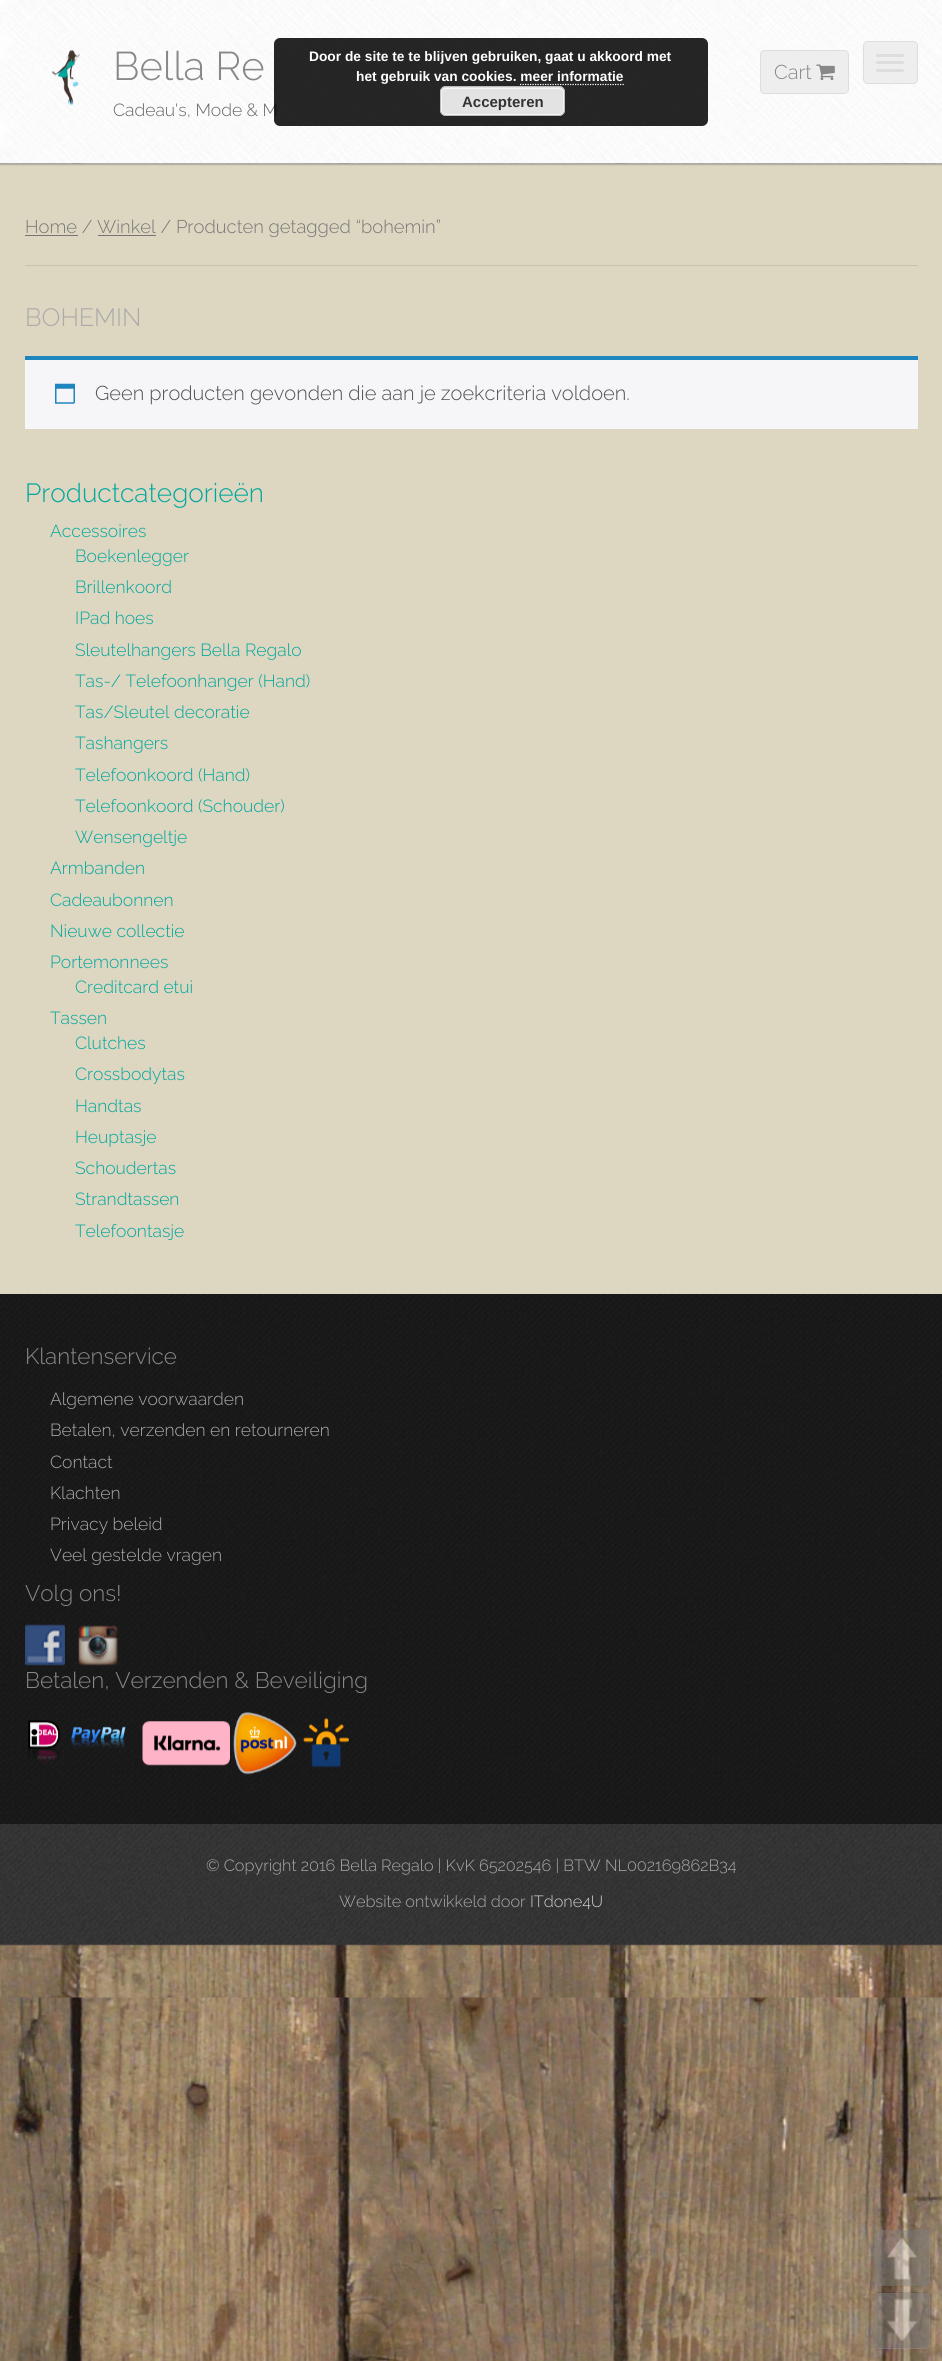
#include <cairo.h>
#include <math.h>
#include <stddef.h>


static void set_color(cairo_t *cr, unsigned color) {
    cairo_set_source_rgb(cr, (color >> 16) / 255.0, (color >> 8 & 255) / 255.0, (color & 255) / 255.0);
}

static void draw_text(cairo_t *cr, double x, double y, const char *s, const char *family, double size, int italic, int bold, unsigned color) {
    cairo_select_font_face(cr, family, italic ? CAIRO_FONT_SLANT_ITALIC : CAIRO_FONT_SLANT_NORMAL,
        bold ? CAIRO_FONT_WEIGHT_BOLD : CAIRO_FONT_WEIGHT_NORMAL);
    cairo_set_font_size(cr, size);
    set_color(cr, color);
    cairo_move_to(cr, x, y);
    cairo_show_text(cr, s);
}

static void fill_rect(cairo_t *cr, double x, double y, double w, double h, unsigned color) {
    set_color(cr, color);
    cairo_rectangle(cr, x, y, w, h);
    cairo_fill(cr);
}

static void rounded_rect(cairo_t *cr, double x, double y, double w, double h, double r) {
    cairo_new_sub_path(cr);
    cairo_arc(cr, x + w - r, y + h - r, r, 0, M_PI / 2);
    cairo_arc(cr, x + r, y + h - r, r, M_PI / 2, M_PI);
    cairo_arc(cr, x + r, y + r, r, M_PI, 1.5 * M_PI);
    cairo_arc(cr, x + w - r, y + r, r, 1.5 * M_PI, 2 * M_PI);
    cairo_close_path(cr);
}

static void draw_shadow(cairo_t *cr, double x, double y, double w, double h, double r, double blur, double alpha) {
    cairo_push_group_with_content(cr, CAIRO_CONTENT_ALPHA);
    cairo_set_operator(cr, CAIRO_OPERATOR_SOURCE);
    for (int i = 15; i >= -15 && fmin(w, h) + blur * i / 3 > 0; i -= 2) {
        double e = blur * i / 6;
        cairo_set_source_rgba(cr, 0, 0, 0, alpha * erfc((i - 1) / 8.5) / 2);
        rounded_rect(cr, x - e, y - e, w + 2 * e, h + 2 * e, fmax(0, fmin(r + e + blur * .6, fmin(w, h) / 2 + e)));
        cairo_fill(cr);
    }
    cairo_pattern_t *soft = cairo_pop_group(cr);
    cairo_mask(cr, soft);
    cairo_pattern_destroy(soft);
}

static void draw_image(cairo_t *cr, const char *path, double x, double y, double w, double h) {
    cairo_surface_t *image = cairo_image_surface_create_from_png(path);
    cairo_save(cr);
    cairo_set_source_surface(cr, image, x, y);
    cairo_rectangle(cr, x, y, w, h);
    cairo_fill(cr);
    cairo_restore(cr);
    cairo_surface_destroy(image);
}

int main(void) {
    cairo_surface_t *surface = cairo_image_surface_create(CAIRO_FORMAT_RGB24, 942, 2361);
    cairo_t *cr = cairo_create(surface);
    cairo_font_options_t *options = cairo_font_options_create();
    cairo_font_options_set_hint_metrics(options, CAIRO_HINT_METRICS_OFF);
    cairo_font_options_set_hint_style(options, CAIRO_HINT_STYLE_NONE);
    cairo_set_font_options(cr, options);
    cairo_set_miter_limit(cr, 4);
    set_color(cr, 0xFFFFFF);
    cairo_paint(cr);
    draw_image(cr, "assets/img1.png", 0, 163, 942, 2198);
    fill_rect(cr, 0, 164, 942, 1130, 0xDDD6C1);
    set_color(cr, 0x000000);
    draw_shadow(cr, 0, 1, 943, 164, 0, 0.5, 0.2);
    draw_image(cr, "assets/img2.png", 0, 0, 942, 164);
    cairo_set_source_rgba(cr, 0, 0, 0, 0.2);
    cairo_rectangle(cr, 0, 163, 942, 1);
    cairo_fill(cr);
    draw_image(cr, "assets/img3.png", 51, 50, 29, 56);
    draw_text(cr, 113, 80, "Bella Re", "Raleway Light", 40, 0, 0, 0x888888);
    draw_text(cr, 113, 116, "Cadeau's, Mode & M", "Raleway Light", 17.5, 0, 0, 0x666666);
    set_color(cr, 0xEEEEEE);
    rounded_rect(cr, 760.5, 50.5, 88, 43, 4.5);
    cairo_fill_preserve(cr);
    set_color(cr, 0xDDDDDD);
    cairo_set_line_width(cr, 1);
    cairo_stroke(cr);
    draw_text(cr, 774, 79, "Cart", "Raleway Light", 20, 0, 0, 0x888888);
    draw_image(cr, "assets/img4.png", 816, 64, 19, 17);
    set_color(cr, 0xEEEEEE);
    rounded_rect(cr, 863.5, 41.5, 54, 42, 4.5);
    cairo_fill_preserve(cr);
    set_color(cr, 0xDDDDDD);
    cairo_stroke(cr);
    rounded_rect(cr, 876, 54, 28, 3, 1.5);
    cairo_fill(cr);
    rounded_rect(cr, 876, 61, 28, 3, 1.5);
    cairo_fill(cr);
    rounded_rect(cr, 876, 69, 28, 3, 1.5);
    cairo_fill(cr);
    fill_rect(cr, 25, 265, 893, 1, 0xC7C1AE);
    fill_rect(cr, 25, 235, 53, 1, 0x767676);
    draw_text(cr, 25, 233, "Home / Winkel / Producten getagged “bohemin”", "Raleway Light", 18.4, 0, 0, 0x767676);
    fill_rect(cr, 98, 235, 58, 1, 0x767676);
    draw_text(cr, 25, 326, "BOHEMIN", "Raleway Light", 25, 0, 0, 0xAAAAAA);
    fill_rect(cr, 25, 360, 893, 69, 0xF6F5F8);
    fill_rect(cr, 25, 356, 893, 4, 0x1E85BE);
    draw_image(cr, "assets/img5.png", 55, 383, 20, 21);
    draw_text(cr, 95, 400, "Geen producten gevonden die aan je zoekcriteria voldoen.", "Raleway Light", 20, 0, 0, 0x515151);
    draw_text(cr, 25, 502, "Productcategorieën", "Raleway Light", 26.25, 0, 0, 0x00A79D);
    draw_text(cr, 50, 537, "Accessoires", "Raleway Light", 17.5, 0, 0, 0x00A79D);
    draw_text(cr, 75, 562, "Boekenlegger", "Raleway Light", 17.5, 0, 0, 0x00A79D);
    draw_text(cr, 75, 593, "Brillenkoord", "Raleway Light", 17.5, 0, 0, 0x00A79D);
    draw_text(cr, 75, 624, "IPad hoes", "Raleway Light", 17.5, 0, 0, 0x00A79D);
    draw_text(cr, 75, 656, "Sleutelhangers Bella Regalo", "Raleway Light", 17.5, 0, 0, 0x00A79D);
    draw_text(cr, 75, 687, "Tas-/ Telefoonhanger (Hand)", "Raleway Light", 17.5, 0, 0, 0x00A79D);
    draw_text(cr, 75, 718, "Tas/Sleutel decoratie", "Raleway Light", 17.5, 0, 0, 0x00A79D);
    draw_text(cr, 75, 749, "Tashangers", "Raleway Light", 17.5, 0, 0, 0x00A79D);
    draw_text(cr, 75, 781, "Telefoonkoord (Hand)", "Raleway Light", 17.5, 0, 0, 0x00A79D);
    draw_text(cr, 75, 812, "Telefoonkoord (Schouder)", "Raleway Light", 17.5, 0, 0, 0x00A79D);
    draw_text(cr, 75, 843, "Wensengeltje", "Raleway Light", 17.5, 0, 0, 0x00A79D);
    draw_text(cr, 50, 874, "Armbanden", "Raleway Light", 17.5, 0, 0, 0x00A79D);
    draw_text(cr, 50, 906, "Cadeaubonnen", "Raleway Light", 17.5, 0, 0, 0x00A79D);
    draw_text(cr, 50, 937, "Nieuwe collectie", "Raleway Light", 17.5, 0, 0, 0x00A79D);
    draw_text(cr, 50, 968, "Portemonnees", "Raleway Light", 17.5, 0, 0, 0x00A79D);
    draw_text(cr, 75, 993, "Creditcard etui", "Raleway Light", 17.5, 0, 0, 0x00A79D);
    draw_text(cr, 50, 1024, "Tassen", "Raleway Light", 17.5, 0, 0, 0x00A79D);
    draw_text(cr, 75, 1049, "Clutches", "Raleway Light", 17.5, 0, 0, 0x00A79D);
    draw_text(cr, 75, 1080, "Crossbodytas", "Raleway Light", 17.5, 0, 0, 0x00A79D);
    draw_text(cr, 75, 1112, "Handtas", "Raleway Light", 17.5, 0, 0, 0x00A79D);
    draw_text(cr, 75, 1143, "Heuptasje", "Raleway Light", 17.5, 0, 0, 0x00A79D);
    draw_text(cr, 75, 1174, "Schoudertas", "Raleway Light", 17.5, 0, 0, 0x00A79D);
    draw_text(cr, 75, 1205, "Strandtassen", "Raleway Light", 17.5, 0, 0, 0x00A79D);
    draw_text(cr, 75, 1237, "Telefoontasje", "Raleway Light", 17.5, 0, 0, 0x00A79D);
    draw_image(cr, "assets/img6.png", 0, 1294, 942, 530);
    draw_text(cr, 25, 1364, "Klantenservice", "Raleway Light", 22.5, 0, 0, 0x888888);
    draw_text(cr, 50, 1405, "Algemene voorwaarden", "Raleway Light", 17.5, 0, 0, 0xAAAAAA);
    draw_text(cr, 50, 1436, "Betalen, verzenden en retourneren", "Raleway Light", 17.5, 0, 0, 0xAAAAAA);
    draw_text(cr, 50, 1468, "Contact", "Raleway Light", 17.5, 0, 0, 0xAAAAAA);
    draw_text(cr, 50, 1499, "Klachten", "Raleway Light", 17.5, 0, 0, 0xAAAAAA);
    draw_text(cr, 50, 1530, "Privacy beleid", "Raleway Light", 17.5, 0, 0, 0xAAAAAA);
    draw_text(cr, 50, 1561, "Veel gestelde vragen", "Raleway Light", 17.5, 0, 0, 0xAAAAAA);
    draw_text(cr, 25, 1601, "Volg ons!", "Raleway Light", 22.5, 0, 0, 0x888888);
    draw_image(cr, "assets/img7.png", 25, 1624, 40, 42);
    draw_image(cr, "assets/img8.png", 78, 1625, 40, 41);
    draw_text(cr, 25, 1688, "Betalen, Verzenden & Beveiliging", "Raleway Light", 22.5, 0, 0, 0x888888);
    draw_image(cr, "assets/img9.png", 28, 1720, 98, 42);
    draw_image(cr, "assets/img10.png", 142, 1721, 88, 45);
    draw_image(cr, "assets/img11.png", 233, 1712, 64, 63);
    draw_image(cr, "assets/img12.png", 303, 1718, 46, 50);
    draw_image(cr, "assets/img13.png", 0, 1824, 942, 122);
    draw_text(cr, 206, 1871, "© Copyright 2016 Bella Regalo | KvK 65202546 | BTW NL002169862B34", "Raleway Light", 16.25, 0, 0, 0xAAAAAA);
    draw_text(cr, 339, 1907, "Website ontwikkeld door", "Raleway Light", 16.25, 0, 0, 0xAAAAAA);
    draw_text(cr, 530, 1907, "ITdone4U", "Raleway Light", 16.25, 0, 0, 0xCCCCCC);
    cairo_set_source_rgba(cr, 0, 0, 0, 0.85);
    rounded_rect(cr, 274, 38, 434, 88, 6);
    cairo_fill(cr);
    draw_text(cr, 309, 61, "Door de site te te blijven gebruiken, gaat u akkoord met", "Liberation Sans", 13.75, 0, 1, 0xFFFFFF);
    draw_text(cr, 356, 81, "het gebruik van cookies. meer informatie", "Liberation Sans", 13.75, 0, 1, 0xFFFFFF);
    cairo_new_path(cr);
    cairo_move_to(cr, 520, 84.5);
    cairo_line_to(cr, 624, 84.5);
    cairo_set_line_width(cr, 1.2);
    cairo_set_dash(cr, (double[]){1.25, 1.25}, 2, 0);
    cairo_stroke(cr);
    set_color(cr, 0xE3E3E3);
    rounded_rect(cr, 440, 86, 125, 30, 6);
    cairo_fill(cr);
    rounded_rect(cr, 441.5, 88.5, 122, 26, 4.5);
    set_color(cr, 0xF6F6F6);
    cairo_set_line_width(cr, 1);
    cairo_set_dash(cr, NULL, 0, 0);
    cairo_stroke(cr);
    rounded_rect(cr, 440.5, 86.5, 124, 29, 5.5);
    set_color(cr, 0xBBBBBB);
    cairo_stroke(cr);
    draw_text(cr, 462, 107, "Accepteren", "Liberation Sans", 15, 0, 1, 0x333333);
    cairo_set_source_rgba(cr, 0.937, 0.937, 0.937, 0.3);
    rounded_rect(cr, 874, 2230, 56, 56, 5);
    cairo_fill(cr);
    draw_image(cr, "assets/img14.png", 873, 2230, 58, 57);
    rounded_rect(cr, 874, 2293, 56, 56, 5);
    cairo_fill(cr);
    draw_image(cr, "assets/img15.png", 873, 2292, 58, 57);
    cairo_surface_write_to_png(surface, "output.png");
    cairo_font_options_destroy(options);
    cairo_destroy(cr);
    cairo_surface_destroy(surface);
    return 0;
}
